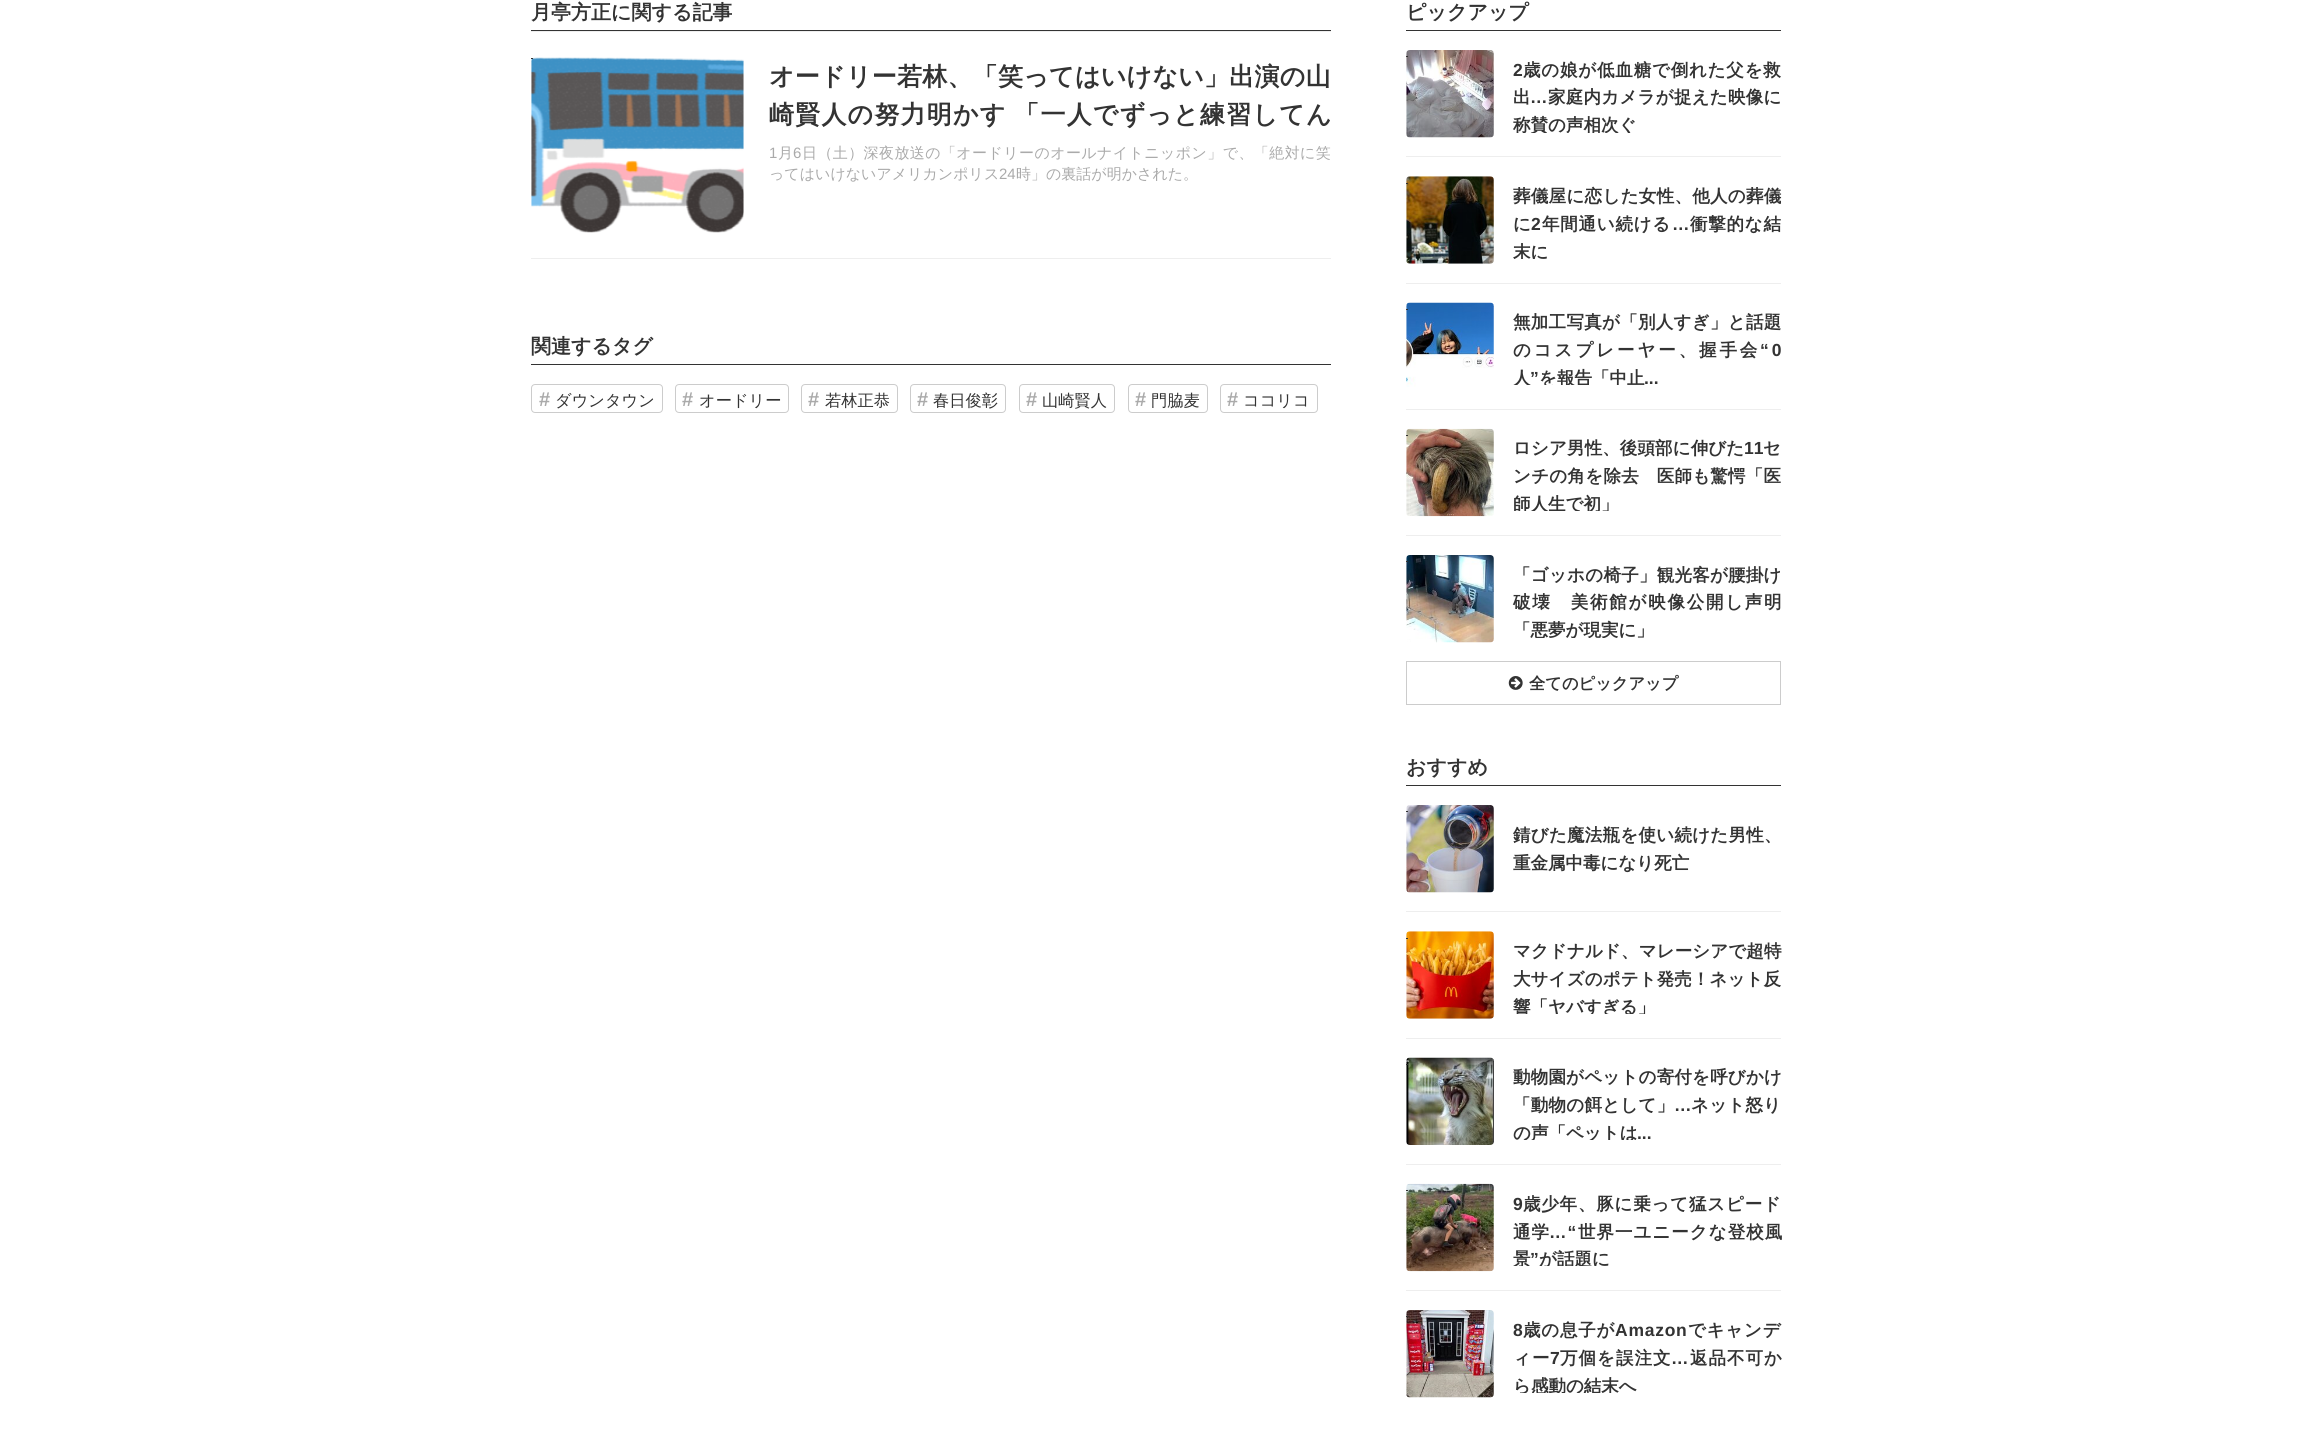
#include <cairo.h>
#include <math.h>
#include <stddef.h>


static void set_color(cairo_t *cr, unsigned color) {
    cairo_set_source_rgb(cr, (color >> 16) / 255.0, (color >> 8 & 255) / 255.0, (color & 255) / 255.0);
}

static void draw_text(cairo_t *cr, double x, double y, const char *s, const char *family, double size, int italic, int bold, unsigned color) {
    cairo_select_font_face(cr, family, italic ? CAIRO_FONT_SLANT_ITALIC : CAIRO_FONT_SLANT_NORMAL,
        bold ? CAIRO_FONT_WEIGHT_BOLD : CAIRO_FONT_WEIGHT_NORMAL);
    cairo_set_font_size(cr, size);
    set_color(cr, color);
    cairo_move_to(cr, x, y);
    cairo_show_text(cr, s);
}

static void draw_spaced(cairo_t *cr, double x, double y, const char *s, double letter, double word) {
    cairo_move_to(cr, x, y);
    while (*s) {
        char ch[5] = {0};
        int n = 0;
        do ch[n++] = *s++; while ((*s & 0xC0) == 0x80);
        cairo_show_text(cr, ch);
        cairo_rel_move_to(cr, letter + word * (*ch == ' '), 0);
    }
}

static void fill_rect(cairo_t *cr, double x, double y, double w, double h, unsigned color) {
    set_color(cr, color);
    cairo_rectangle(cr, x, y, w, h);
    cairo_fill(cr);
}

static void rounded_rect(cairo_t *cr, double x, double y, double w, double h, double r) {
    cairo_new_sub_path(cr);
    cairo_arc(cr, x + w - r, y + h - r, r, 0, M_PI / 2);
    cairo_arc(cr, x + r, y + h - r, r, M_PI / 2, M_PI);
    cairo_arc(cr, x + r, y + r, r, M_PI, 1.5 * M_PI);
    cairo_arc(cr, x + w - r, y + r, r, 1.5 * M_PI, 2 * M_PI);
    cairo_close_path(cr);
}

static void draw_image(cairo_t *cr, const char *path, double x, double y, double w, double h) {
    cairo_surface_t *image = cairo_image_surface_create_from_png(path);
    cairo_save(cr);
    cairo_set_source_surface(cr, image, x, y);
    cairo_rectangle(cr, x, y, w, h);
    cairo_fill(cr);
    cairo_restore(cr);
    cairo_surface_destroy(image);
}

int main(void) {
    cairo_surface_t *surface = cairo_image_surface_create(CAIRO_FORMAT_RGB24, 2312, 1447);
    cairo_t *cr = cairo_create(surface);
    cairo_font_options_t *options = cairo_font_options_create();
    cairo_font_options_set_hint_metrics(options, CAIRO_HINT_METRICS_OFF);
    cairo_font_options_set_hint_style(options, CAIRO_HINT_STYLE_NONE);
    cairo_set_font_options(cr, options);
    cairo_set_miter_limit(cr, 4);
    set_color(cr, 0xFFFFFF);
    cairo_paint(cr);
    fill_rect(cr, 531, 30, 800, 1, 0x333333);
    draw_text(cr, 531, 19, "月亭方正に関する記事", "WenQuanYi Zen Hei", 20, 0, 1, 0x333333);
    fill_rect(cr, 531, 31, 800, 1, 0xEEEEEE);
    fill_rect(cr, 531, 258, 800, 1, 0xEEEEEE);
    draw_image(cr, "assets/img1.png", 531, 57, 213, 176);
    fill_rect(cr, 531, 58, 2, 1, 0x333333);
    cairo_set_font_size(cr, 25);
    draw_spaced(cr, 769, 85, "オードリー若林、「笑ってはいけない」出演の山", 0.25, 0);
    draw_spaced(cr, 769, 123, "崎賢人の努力明かす 「一人でずっと練習してん", 1.2, -1);
    cairo_select_font_face(cr, "Liberation Sans", CAIRO_FONT_SLANT_NORMAL, CAIRO_FONT_WEIGHT_NORMAL);
    cairo_set_font_size(cr, 15);
    set_color(cr, 0xAAAAAA);
    draw_spaced(cr, 769, 158, "1", 0.4, 0);
    cairo_select_font_face(cr, "WenQuanYi Zen Hei Medium", CAIRO_FONT_SLANT_NORMAL, CAIRO_FONT_WEIGHT_NORMAL);
    draw_spaced(cr, 778, 158, "月", 0.4, 0);
    cairo_select_font_face(cr, "Liberation Sans", CAIRO_FONT_SLANT_NORMAL, CAIRO_FONT_WEIGHT_NORMAL);
    draw_spaced(cr, 793, 158, "6", 0.4, 0);
    cairo_select_font_face(cr, "WenQuanYi Zen Hei Medium", CAIRO_FONT_SLANT_NORMAL, CAIRO_FONT_WEIGHT_NORMAL);
    draw_spaced(cr, 802, 158, "日（土）深夜放送の「オードリーのオールナイトニッポン」で、「絶対に笑", 0.4, 0);
    draw_text(cr, 769, 179, "ってはいけないアメリカンポリス", "WenQuanYi Zen Hei Medium", 15, 0, 0, 0xAAAAAA);
    draw_text(cr, 999, 179, "24", "Liberation Sans", 15, 0, 0, 0xAAAAAA);
    draw_text(cr, 1016, 179, "時」の裏話が明かされた。", "WenQuanYi Zen Hei Medium", 15, 0, 0, 0xAAAAAA);
    fill_rect(cr, 531, 364, 800, 1, 0x333333);
    draw_text(cr, 531, 353, "関連するタグ", "WenQuanYi Zen Hei", 20, 0, 1, 0x333333);
    rounded_rect(cr, 531.5, 384.5, 131, 28, 3.5);
    set_color(cr, 0xCCCCCC);
    cairo_set_line_width(cr, 1);
    cairo_stroke(cr);
    draw_text(cr, 539, 406, "#", "Liberation Sans", 20, 0, 1, 0xAAAAAA);
    draw_text(cr, 555, 406, "ダウンタウン", "WenQuanYi Zen Hei Medium", 16.25, 0, 0, 0x333333);
    rounded_rect(cr, 675.5, 384.5, 113, 28, 3.5);
    set_color(cr, 0xCCCCCC);
    cairo_stroke(cr);
    draw_text(cr, 682, 406, "#", "Liberation Sans", 20, 0, 1, 0xAAAAAA);
    draw_text(cr, 699, 406, "オードリー", "WenQuanYi Zen Hei Medium", 16.25, 0, 0, 0x333333);
    rounded_rect(cr, 801.5, 384.5, 96, 28, 3.5);
    set_color(cr, 0xCCCCCC);
    cairo_stroke(cr);
    draw_text(cr, 808, 406, "#", "Liberation Sans", 20, 0, 1, 0xAAAAAA);
    draw_text(cr, 825, 406, "若林正恭", "WenQuanYi Zen Hei Medium", 16.25, 0, 0, 0x333333);
    rounded_rect(cr, 910.5, 384.5, 95, 28, 3.5);
    set_color(cr, 0xCCCCCC);
    cairo_stroke(cr);
    draw_text(cr, 917, 406, "#", "Liberation Sans", 20, 0, 1, 0xAAAAAA);
    draw_text(cr, 933, 406, "春日俊彰", "WenQuanYi Zen Hei Medium", 16.25, 0, 0, 0x333333);
    rounded_rect(cr, 1019.5, 384.5, 95, 28, 3.5);
    set_color(cr, 0xCCCCCC);
    cairo_stroke(cr);
    draw_text(cr, 1026, 406, "#", "Liberation Sans", 20, 0, 1, 0xAAAAAA);
    draw_text(cr, 1042, 406, "山崎賢人", "WenQuanYi Zen Hei Medium", 16.25, 0, 0, 0x333333);
    rounded_rect(cr, 1128.5, 384.5, 79, 28, 3.5);
    set_color(cr, 0xCCCCCC);
    cairo_stroke(cr);
    draw_text(cr, 1135, 406, "#", "Liberation Sans", 20, 0, 1, 0xAAAAAA);
    draw_text(cr, 1151, 406, "門脇麦", "WenQuanYi Zen Hei Medium", 16.25, 0, 0, 0x333333);
    rounded_rect(cr, 1220.5, 384.5, 97, 28, 3.5);
    set_color(cr, 0xCCCCCC);
    cairo_stroke(cr);
    draw_text(cr, 1227, 406, "#", "Liberation Sans", 20, 0, 1, 0xAAAAAA);
    draw_text(cr, 1243, 406, "ココリコ", "WenQuanYi Zen Hei Medium", 16.25, 0, 0, 0x333333);
    fill_rect(cr, 1406, 30, 375, 1, 0x333333);
    draw_text(cr, 1406, 19, "ピックアップ", "WenQuanYi Zen Hei", 20, 0, 1, 0x333333);
    fill_rect(cr, 1406, 156, 375, 1, 0xEEEEEE);
    draw_image(cr, "assets/img2.png", 1406, 50, 88, 88);
    fill_rect(cr, 1406, 56, 2, 1, 0x333333);
    cairo_select_font_face(cr, "Liberation Sans", CAIRO_FONT_SLANT_NORMAL, CAIRO_FONT_WEIGHT_BOLD);
    cairo_set_font_size(cr, 17.5);
    draw_spaced(cr, 1513, 76, "2", 0.8, 0);
    cairo_select_font_face(cr, "WenQuanYi Zen Hei", CAIRO_FONT_SLANT_NORMAL, CAIRO_FONT_WEIGHT_BOLD);
    draw_spaced(cr, 1523, 76, "歳の娘が低血糖で倒れた父を救", 0.8, 0);
    draw_spaced(cr, 1513, 103, "出", 0.25, 0);
    cairo_select_font_face(cr, "Liberation Sans", CAIRO_FONT_SLANT_NORMAL, CAIRO_FONT_WEIGHT_BOLD);
    draw_spaced(cr, 1530, 103, "…", 0.25, 0);
    cairo_select_font_face(cr, "WenQuanYi Zen Hei", CAIRO_FONT_SLANT_NORMAL, CAIRO_FONT_WEIGHT_BOLD);
    draw_spaced(cr, 1548, 103, "家庭内カメラが捉えた映像に", 0.25, 0);
    cairo_save(cr);
    cairo_rectangle(cr, 1513, 55, 268, 78);
    cairo_clip(cr);
    draw_text(cr, 1513, 131, "称賛の声相次ぐ", "WenQuanYi Zen Hei", 17.5, 0, 1, 0x333333);
    cairo_restore(cr);
    fill_rect(cr, 1406, 283, 375, 1, 0xEEEEEE);
    draw_image(cr, "assets/img3.png", 1406, 176, 88, 88);
    fill_rect(cr, 1406, 183, 2, 1, 0x333333);
    draw_spaced(cr, 1513, 202, "葬儀屋に恋した女性、他人の葬儀", 0.3, 0);
    draw_spaced(cr, 1513, 230, "に", 0.75, 0);
    cairo_select_font_face(cr, "Liberation Sans", CAIRO_FONT_SLANT_NORMAL, CAIRO_FONT_WEIGHT_BOLD);
    draw_spaced(cr, 1531, 230, "2", 0.75, 0);
    cairo_select_font_face(cr, "WenQuanYi Zen Hei", CAIRO_FONT_SLANT_NORMAL, CAIRO_FONT_WEIGHT_BOLD);
    draw_spaced(cr, 1542, 230, "年間通い続ける", 0.75, 0);
    cairo_select_font_face(cr, "Liberation Sans", CAIRO_FONT_SLANT_NORMAL, CAIRO_FONT_WEIGHT_BOLD);
    draw_spaced(cr, 1672, 230, "…", 0.75, 0);
    cairo_select_font_face(cr, "WenQuanYi Zen Hei", CAIRO_FONT_SLANT_NORMAL, CAIRO_FONT_WEIGHT_BOLD);
    draw_spaced(cr, 1690, 230, "衝撃的な結", 0.75, 0);
    cairo_save(cr);
    cairo_rectangle(cr, 1513, 181, 268, 78);
    cairo_clip(cr);
    draw_text(cr, 1513, 258, "末に", "WenQuanYi Zen Hei", 17.5, 0, 1, 0x333333);
    cairo_restore(cr);
    fill_rect(cr, 1406, 409, 375, 1, 0xEEEEEE);
    draw_image(cr, "assets/img4.png", 1406, 302, 88, 85);
    fill_rect(cr, 1406, 309, 2, 1, 0x333333);
    draw_spaced(cr, 1513, 328, "無加工写真が「別人すぎ」と話題", 0.3, 0);
    draw_spaced(cr, 1513, 356, "のコスプレーヤー、握手会", 2.9, 0);
    cairo_select_font_face(cr, "Liberation Sans", CAIRO_FONT_SLANT_NORMAL, CAIRO_FONT_WEIGHT_BOLD);
    draw_spaced(cr, 1760, 356, "“0", 2.9, 0);
    cairo_save(cr);
    cairo_rectangle(cr, 1513, 308, 268, 77);
    cairo_clip(cr);
    draw_text(cr, 1513, 384, "人", "WenQuanYi Zen Hei", 17.5, 0, 1, 0x333333);
    cairo_restore(cr);
    draw_text(cr, 1530, 384, "”", "Liberation Sans", 17.5, 0, 1, 0x333333);
    cairo_save(cr);
    cairo_rectangle(cr, 1513, 308, 268, 77);
    cairo_clip(cr);
    draw_text(cr, 1539, 384, "を報告「中止", "WenQuanYi Zen Hei", 17.5, 0, 1, 0x333333);
    cairo_restore(cr);
    draw_text(cr, 1644, 384, "...", "Liberation Sans", 17.5, 0, 1, 0x333333);
    fill_rect(cr, 1406, 535, 375, 1, 0xEEEEEE);
    draw_image(cr, "assets/img5.png", 1406, 428, 88, 89);
    fill_rect(cr, 1406, 435, 2, 1, 0x333333);
    cairo_select_font_face(cr, "WenQuanYi Zen Hei", CAIRO_FONT_SLANT_NORMAL, CAIRO_FONT_WEIGHT_BOLD);
    draw_spaced(cr, 1513, 454, "ロシア男性、後頭部に伸びた", 0.1, 0);
    cairo_select_font_face(cr, "Liberation Sans", CAIRO_FONT_SLANT_NORMAL, CAIRO_FONT_WEIGHT_BOLD);
    draw_spaced(cr, 1744, 454, "11", 0.1, 0);
    cairo_select_font_face(cr, "WenQuanYi Zen Hei", CAIRO_FONT_SLANT_NORMAL, CAIRO_FONT_WEIGHT_BOLD);
    draw_spaced(cr, 1763, 454, "セ", 0.1, 0);
    draw_spaced(cr, 1513, 482, "ンチの角を除去　医師も驚愕「医", 0.25, 0);
    cairo_save(cr);
    cairo_rectangle(cr, 1513, 434, 268, 77);
    cairo_clip(cr);
    draw_text(cr, 1513, 510, "師人生で初」", "WenQuanYi Zen Hei", 17.5, 0, 1, 0x333333);
    cairo_restore(cr);
    draw_image(cr, "assets/img6.png", 1406, 555, 88, 88);
    fill_rect(cr, 1406, 561, 2, 1, 0x333333);
    draw_spaced(cr, 1513, 581, "「ゴッホの椅子」観光客が腰掛け", 0.25, 0);
    draw_spaced(cr, 1513, 608, "破壊　美術館が映像公開し声明", 1.75, 0);
    cairo_save(cr);
    cairo_rectangle(cr, 1513, 560, 268, 78);
    cairo_clip(cr);
    draw_text(cr, 1513, 636, "「悪夢が現実に」", "WenQuanYi Zen Hei", 17.5, 0, 1, 0x333333);
    cairo_restore(cr);
    cairo_rectangle(cr, 1406.5, 661.5, 374, 43);
    set_color(cr, 0xCCCCCC);
    cairo_stroke(cr);
    draw_image(cr, "assets/img7.png", 1508, 676, 15, 14);
    draw_text(cr, 1529, 689, "全てのピックアップ", "WenQuanYi Zen Hei", 16.25, 0, 1, 0x333333);
    fill_rect(cr, 1406, 785, 375, 1, 0x333333);
    draw_text(cr, 1406, 774, "おすすめ", "WenQuanYi Zen Hei", 20, 0, 1, 0x333333);
    fill_rect(cr, 1406, 911, 375, 1, 0xEEEEEE);
    draw_image(cr, "assets/img8.png", 1406, 805, 88, 88);
    fill_rect(cr, 1406, 811, 2, 1, 0x333333);
    cairo_set_font_size(cr, 17.5);
    draw_spaced(cr, 1513, 841, "錆びた魔法瓶を使い続けた男性、", 0.25, 0);
    draw_text(cr, 1513, 869, "重金属中毒になり死亡", "WenQuanYi Zen Hei", 17.5, 0, 1, 0x333333);
    fill_rect(cr, 1406, 1038, 375, 1, 0xEEEEEE);
    draw_image(cr, "assets/img9.png", 1406, 931, 88, 88);
    fill_rect(cr, 1406, 938, 2, 1, 0x333333);
    draw_spaced(cr, 1513, 957, "マクドナルド、マレーシアで超特", 0.1, 0);
    draw_spaced(cr, 1513, 985, "大サイズのポテト発売！ネット反", 0.1, 0);
    cairo_save(cr);
    cairo_rectangle(cr, 1513, 938, 268, 76);
    cairo_clip(cr);
    draw_text(cr, 1513, 1013, "響「ヤバすぎる」", "WenQuanYi Zen Hei", 17.5, 0, 1, 0x333333);
    cairo_restore(cr);
    fill_rect(cr, 1406, 1164, 375, 1, 0xEEEEEE);
    draw_image(cr, "assets/img10.png", 1406, 1057, 88, 88);
    fill_rect(cr, 1406, 1064, 2, 1, 0x333333);
    draw_spaced(cr, 1513, 1083, "動物園がペットの寄付を呼びかけ", 0.2, 0);
    draw_spaced(cr, 1513, 1111, "「動物の餌として」", 0.25, 0);
    cairo_select_font_face(cr, "Liberation Sans", CAIRO_FONT_SLANT_NORMAL, CAIRO_FONT_WEIGHT_BOLD);
    draw_spaced(cr, 1674, 1111, "…", 0.25, 0);
    cairo_select_font_face(cr, "WenQuanYi Zen Hei", CAIRO_FONT_SLANT_NORMAL, CAIRO_FONT_WEIGHT_BOLD);
    draw_spaced(cr, 1691, 1111, "ネット怒り", 0.25, 0);
    cairo_save(cr);
    cairo_rectangle(cr, 1513, 1064, 268, 76);
    cairo_clip(cr);
    draw_text(cr, 1513, 1139, "の声「ペットは", "WenQuanYi Zen Hei", 17.5, 0, 1, 0x333333);
    cairo_restore(cr);
    draw_text(cr, 1637, 1139, "...", "Liberation Sans", 17.5, 0, 1, 0x333333);
    fill_rect(cr, 1406, 1290, 375, 1, 0xEEEEEE);
    draw_image(cr, "assets/img11.png", 1406, 1183, 88, 89);
    fill_rect(cr, 1406, 1190, 2, 1, 0x333333);
    draw_spaced(cr, 1513, 1210, "9", 0.8, 0);
    cairo_select_font_face(cr, "WenQuanYi Zen Hei", CAIRO_FONT_SLANT_NORMAL, CAIRO_FONT_WEIGHT_BOLD);
    draw_spaced(cr, 1523, 1210, "歳少年、豚に乗って猛スピード", 0.8, 0);
    draw_spaced(cr, 1513, 1238, "通学", 1, 0);
    cairo_select_font_face(cr, "Liberation Sans", CAIRO_FONT_SLANT_NORMAL, CAIRO_FONT_WEIGHT_BOLD);
    draw_spaced(cr, 1549, 1238, "…“", 1, 0);
    cairo_select_font_face(cr, "WenQuanYi Zen Hei", CAIRO_FONT_SLANT_NORMAL, CAIRO_FONT_WEIGHT_BOLD);
    draw_spaced(cr, 1578, 1238, "世界一ユニークな登校風", 1, 0);
    cairo_save(cr);
    cairo_rectangle(cr, 1513, 1190, 268, 76);
    cairo_clip(cr);
    draw_text(cr, 1513, 1265, "景", "WenQuanYi Zen Hei", 17.5, 0, 1, 0x333333);
    cairo_restore(cr);
    draw_text(cr, 1530, 1265, "”", "Liberation Sans", 17.5, 0, 1, 0x333333);
    cairo_save(cr);
    cairo_rectangle(cr, 1513, 1190, 268, 76);
    cairo_clip(cr);
    draw_text(cr, 1539, 1265, "が話題に", "WenQuanYi Zen Hei", 17.5, 0, 1, 0x333333);
    cairo_restore(cr);
    draw_image(cr, "assets/img12.png", 1406, 1310, 88, 88);
    fill_rect(cr, 1406, 1316, 2, 1, 0x333333);
    draw_spaced(cr, 1513, 1336, "8", 0.75, 0);
    cairo_select_font_face(cr, "WenQuanYi Zen Hei", CAIRO_FONT_SLANT_NORMAL, CAIRO_FONT_WEIGHT_BOLD);
    draw_spaced(cr, 1523, 1336, "歳の息子が", 0.75, 0);
    cairo_select_font_face(cr, "Liberation Sans", CAIRO_FONT_SLANT_NORMAL, CAIRO_FONT_WEIGHT_BOLD);
    draw_spaced(cr, 1615, 1336, "Amazon", 0.75, 0);
    cairo_select_font_face(cr, "WenQuanYi Zen Hei", CAIRO_FONT_SLANT_NORMAL, CAIRO_FONT_WEIGHT_BOLD);
    draw_spaced(cr, 1688, 1336, "でキャンデ", 0.75, 0);
    draw_spaced(cr, 1513, 1364, "ィー", 1, 0);
    cairo_select_font_face(cr, "Liberation Sans", CAIRO_FONT_SLANT_NORMAL, CAIRO_FONT_WEIGHT_BOLD);
    draw_spaced(cr, 1550, 1364, "7", 1, 0);
    cairo_select_font_face(cr, "WenQuanYi Zen Hei", CAIRO_FONT_SLANT_NORMAL, CAIRO_FONT_WEIGHT_BOLD);
    draw_spaced(cr, 1560, 1364, "万個を誤注文", 1, 0);
    cairo_select_font_face(cr, "Liberation Sans", CAIRO_FONT_SLANT_NORMAL, CAIRO_FONT_WEIGHT_BOLD);
    draw_spaced(cr, 1671, 1364, "…", 1, 0);
    cairo_select_font_face(cr, "WenQuanYi Zen Hei", CAIRO_FONT_SLANT_NORMAL, CAIRO_FONT_WEIGHT_BOLD);
    draw_spaced(cr, 1690, 1364, "返品不可か", 1, 0);
    cairo_save(cr);
    cairo_rectangle(cr, 1513, 1316, 268, 77);
    cairo_clip(cr);
    draw_text(cr, 1513, 1392, "ら感動の結末へ", "WenQuanYi Zen Hei", 17.5, 0, 1, 0x333333);
    cairo_restore(cr);
    cairo_surface_write_to_png(surface, "output.png");
    cairo_font_options_destroy(options);
    cairo_destroy(cr);
    cairo_surface_destroy(surface);
    return 0;
}
